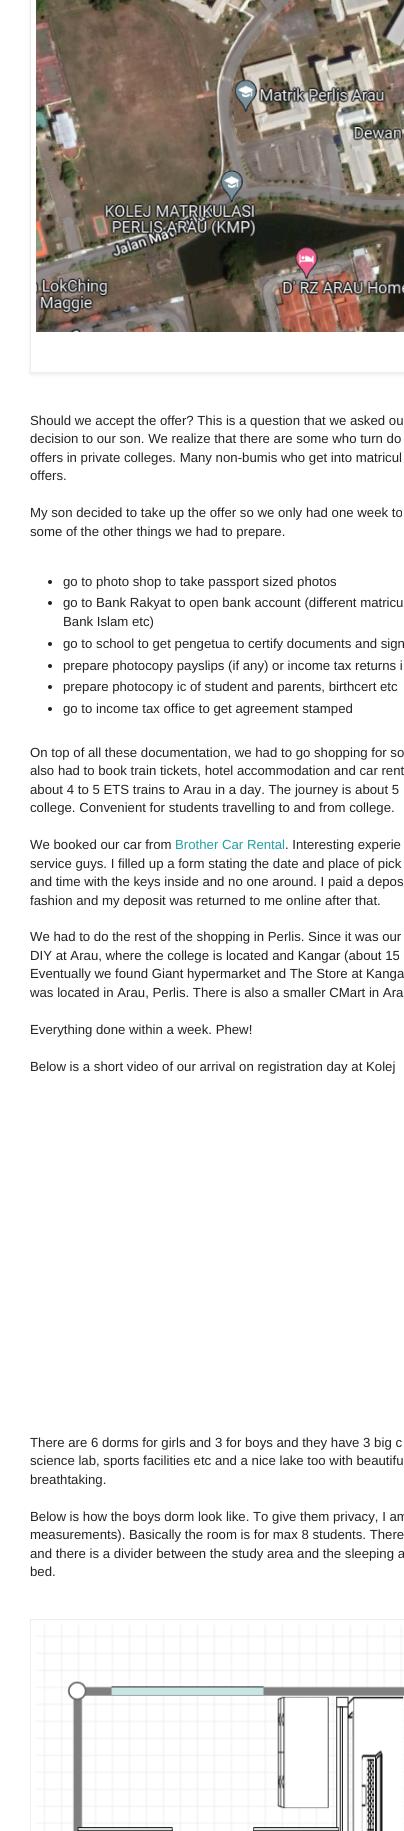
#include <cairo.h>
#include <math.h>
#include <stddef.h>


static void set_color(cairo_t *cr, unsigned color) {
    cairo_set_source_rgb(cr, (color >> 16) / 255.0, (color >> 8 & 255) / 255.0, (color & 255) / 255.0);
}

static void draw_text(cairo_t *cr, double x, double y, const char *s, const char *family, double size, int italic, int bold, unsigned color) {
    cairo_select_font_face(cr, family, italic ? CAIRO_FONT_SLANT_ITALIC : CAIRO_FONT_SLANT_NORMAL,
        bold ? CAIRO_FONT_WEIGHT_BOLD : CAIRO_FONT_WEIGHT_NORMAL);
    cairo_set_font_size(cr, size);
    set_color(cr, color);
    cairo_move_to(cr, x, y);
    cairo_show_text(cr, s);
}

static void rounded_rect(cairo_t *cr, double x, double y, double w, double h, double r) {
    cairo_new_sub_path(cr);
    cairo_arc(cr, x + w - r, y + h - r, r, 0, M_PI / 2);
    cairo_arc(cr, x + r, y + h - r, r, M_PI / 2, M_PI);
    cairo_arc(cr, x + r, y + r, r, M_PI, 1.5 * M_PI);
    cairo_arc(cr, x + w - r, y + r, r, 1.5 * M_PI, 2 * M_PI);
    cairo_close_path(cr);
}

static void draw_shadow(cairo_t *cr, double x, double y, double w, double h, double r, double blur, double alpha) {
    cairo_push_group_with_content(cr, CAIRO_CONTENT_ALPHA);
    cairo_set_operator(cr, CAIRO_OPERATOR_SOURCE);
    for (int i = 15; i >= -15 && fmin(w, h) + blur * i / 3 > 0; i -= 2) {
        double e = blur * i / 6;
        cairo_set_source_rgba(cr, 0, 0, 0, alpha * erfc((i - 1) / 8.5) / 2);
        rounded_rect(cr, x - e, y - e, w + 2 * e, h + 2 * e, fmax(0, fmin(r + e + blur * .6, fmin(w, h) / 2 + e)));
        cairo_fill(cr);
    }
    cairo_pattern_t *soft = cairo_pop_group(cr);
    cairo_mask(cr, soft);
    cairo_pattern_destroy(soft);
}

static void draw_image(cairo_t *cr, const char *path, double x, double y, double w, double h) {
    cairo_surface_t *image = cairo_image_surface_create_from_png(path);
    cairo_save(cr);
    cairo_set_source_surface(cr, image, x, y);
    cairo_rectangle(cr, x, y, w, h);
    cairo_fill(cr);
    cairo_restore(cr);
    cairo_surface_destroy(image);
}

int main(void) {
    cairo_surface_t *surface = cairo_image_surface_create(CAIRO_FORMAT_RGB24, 404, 1831);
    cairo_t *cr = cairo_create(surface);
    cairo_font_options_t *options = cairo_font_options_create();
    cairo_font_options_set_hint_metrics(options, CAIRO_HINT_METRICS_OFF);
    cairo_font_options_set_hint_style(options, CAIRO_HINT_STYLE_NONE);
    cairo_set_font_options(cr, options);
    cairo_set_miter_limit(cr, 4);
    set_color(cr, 0xFFFFFF);
    cairo_paint(cr);
    cairo_save(cr);
    cairo_set_fill_rule(cr, CAIRO_FILL_RULE_EVEN_ODD);
    cairo_new_path(cr);
    cairo_move_to(cr, 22, 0);
    cairo_line_to(cr, 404, 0);
    cairo_line_to(cr, 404, 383);
    cairo_line_to(cr, 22, 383);
    cairo_close_path(cr);
    cairo_move_to(cr, 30, -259);
    cairo_line_to(cr, 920, -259);
    cairo_line_to(cr, 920, 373);
    cairo_line_to(cr, 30, 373);
    cairo_close_path(cr);
    cairo_clip(cr);
    set_color(cr, 0x000000);
    draw_shadow(cr, 31, -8, 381, 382, 0, 2.5, 0.1);
    cairo_restore(cr);
    cairo_rectangle(cr, 30.5, -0.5, 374, 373);
    set_color(cr, 0xEEEEEE);
    cairo_set_line_width(cr, 1);
    cairo_stroke(cr);
    draw_image(cr, "assets/img1.png", 36, 0, 368, 332);
    draw_text(cr, 30, 425, "Should we accept the offer? This is a question that we asked ou", "Liberation Sans", 13.2, 0, 0, 0x222222);
    draw_text(cr, 30, 443, "decision to our son. We realize that there are some who turn do", "Liberation Sans", 13.2, 0, 0, 0x222222);
    draw_text(cr, 30, 462, "offers in private colleges. Many non-bumis who get into matricul", "Liberation Sans", 13.2, 0, 0, 0x222222);
    draw_text(cr, 30, 480, "offers.", "Liberation Sans", 13.2, 0, 0, 0x222222);
    draw_text(cr, 30, 517, "My son decided to take up the offer so we only had one week to", "Liberation Sans", 13.2, 0, 0, 0x222222);
    draw_text(cr, 30, 536, "some of the other things we had to prepare.", "Liberation Sans", 13.2, 0, 0, 0x222222);
    cairo_new_path(cr);
    cairo_arc(cr, 50, 582, 2, 0, 2 * M_PI);
    cairo_fill(cr);
    draw_text(cr, 63, 586, "go to photo shop to take passport sized photos", "Liberation Sans", 13.2, 0, 0, 0x222222);
    cairo_new_path(cr);
    cairo_arc(cr, 50, 603, 2, 0, 2 * M_PI);
    cairo_fill(cr);
    draw_text(cr, 63, 607, "go to Bank Rakyat to open bank account (different matricu", "Liberation Sans", 13.2, 0, 0, 0x222222);
    draw_text(cr, 63, 626, "Bank Islam etc)", "Liberation Sans", 13.2, 0, 0, 0x222222);
    cairo_new_path(cr);
    cairo_arc(cr, 50, 644, 2, 0, 2 * M_PI);
    cairo_fill(cr);
    draw_text(cr, 63, 648, "go to school to get pengetua to certify documents and sign", "Liberation Sans", 13.2, 0, 0, 0x222222);
    cairo_new_path(cr);
    cairo_arc(cr, 50, 666, 2, 0, 2 * M_PI);
    cairo_fill(cr);
    draw_text(cr, 63, 670, "prepare photocopy payslips (if any) or income tax returns i", "Liberation Sans", 13.2, 0, 0, 0x222222);
    cairo_new_path(cr);
    cairo_arc(cr, 50, 687, 2, 0, 2 * M_PI);
    cairo_fill(cr);
    draw_text(cr, 63, 691, "prepare photocopy ic of student and parents, birthcert etc", "Liberation Sans", 13.2, 0, 0, 0x222222);
    cairo_new_path(cr);
    cairo_arc(cr, 50, 709, 2, 0, 2 * M_PI);
    cairo_fill(cr);
    draw_text(cr, 63, 713, "go to income tax office to get agreement stamped", "Liberation Sans", 13.2, 0, 0, 0x222222);
    draw_text(cr, 30, 757, "On top of all these documentation, we had to go shopping for so", "Liberation Sans", 13.2, 0, 0, 0x222222);
    draw_text(cr, 30, 775, "also had to book train tickets, hotel accommodation and car rent", "Liberation Sans", 13.2, 0, 0, 0x222222);
    draw_text(cr, 30, 794, "about 4 to 5 ETS trains to Arau in a day. The journey is about 5", "Liberation Sans", 13.2, 0, 0, 0x222222);
    draw_text(cr, 30, 812, "college. Convenient for students travelling to and from college.", "Liberation Sans", 13.2, 0, 0, 0x222222);
    draw_text(cr, 30, 849, "We booked our car from", "Liberation Sans", 13.2, 0, 0, 0x222222);
    draw_text(cr, 175, 849, "Brother Car Rental", "Liberation Sans", 13.2, 0, 0, 0x249FA3);
    draw_text(cr, 285, 849, ". Interesting experie", "Liberation Sans", 13.2, 0, 0, 0x222222);
    draw_text(cr, 30, 868, "service guys. I filled up a form stating the date and place of pick", "Liberation Sans", 13.2, 0, 0, 0x222222);
    draw_text(cr, 30, 886, "and time with the keys inside and no one around. I paid a depos", "Liberation Sans", 13.2, 0, 0, 0x222222);
    draw_text(cr, 30, 905, "fashion and my deposit was returned to me online after that.", "Liberation Sans", 13.2, 0, 0, 0x222222);
    draw_text(cr, 30, 941, "We had to do the rest of the shopping in Perlis. Since it was our", "Liberation Sans", 13.2, 0, 0, 0x222222);
    draw_text(cr, 30, 960, "DIY at Arau, where the college is located and Kangar (about 15", "Liberation Sans", 13.2, 0, 0, 0x222222);
    draw_text(cr, 30, 978, "Eventually we found Giant hypermarket and The Store at Kanga", "Liberation Sans", 13.2, 0, 0, 0x222222);
    draw_text(cr, 30, 997, "was located in Arau, Perlis. There is also a smaller CMart in Ara", "Liberation Sans", 13.2, 0, 0, 0x222222);
    draw_text(cr, 30, 1034, "Everything done within a week. Phew!", "Liberation Sans", 13.2, 0, 0, 0x222222);
    draw_text(cr, 30, 1071, "Below is a short video of our arrival on registration day at Kolej", "Liberation Sans", 13.2, 0, 0, 0x222222);
    draw_text(cr, 30, 1447, "There are 6 dorms for girls and 3 for boys and they have 3 big c", "Liberation Sans", 13.2, 0, 0, 0x222222);
    draw_text(cr, 30, 1465, "science lab, sports facilities etc and a nice lake too with beautifu", "Liberation Sans", 13.2, 0, 0, 0x222222);
    draw_text(cr, 30, 1484, "breathtaking.", "Liberation Sans", 13.2, 0, 0, 0x222222);
    draw_text(cr, 30, 1521, "Below is how the boys dorm look like. To give them privacy, I am", "Liberation Sans", 13.2, 0, 0, 0x222222);
    draw_text(cr, 30, 1539, "measurements). Basically the room is for max 8 students. There", "Liberation Sans", 13.2, 0, 0, 0x222222);
    draw_text(cr, 30, 1558, "and there is a divider between the study area and the sleeping a", "Liberation Sans", 13.2, 0, 0, 0x222222);
    draw_text(cr, 30, 1576, "bed.", "Liberation Sans", 13.2, 0, 0, 0x222222);
    cairo_rectangle(cr, 30.5, 1619.5, 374, 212);
    set_color(cr, 0xEEEEEE);
    cairo_stroke(cr);
    draw_image(cr, "assets/img2.png", 36, 1625, 368, 206);
    cairo_surface_write_to_png(surface, "output.png");
    cairo_font_options_destroy(options);
    cairo_destroy(cr);
    cairo_surface_destroy(surface);
    return 0;
}
